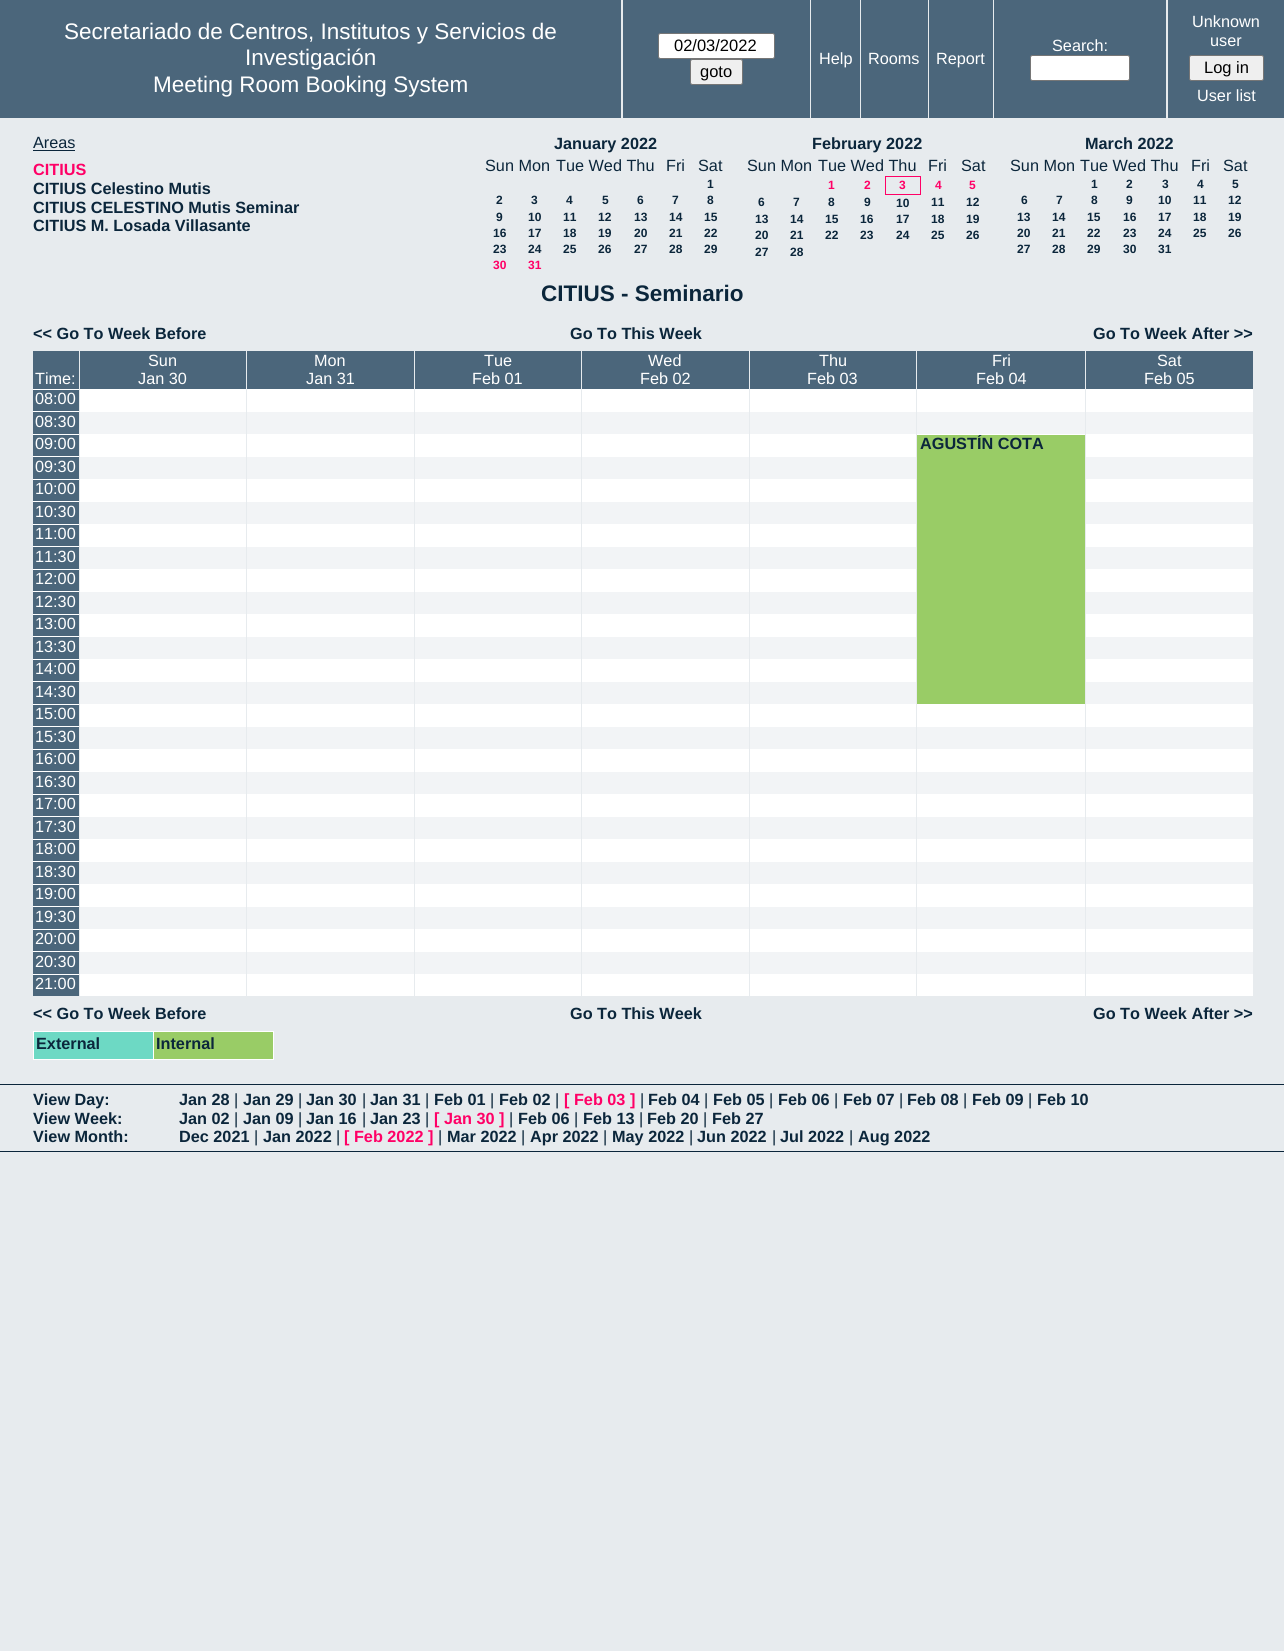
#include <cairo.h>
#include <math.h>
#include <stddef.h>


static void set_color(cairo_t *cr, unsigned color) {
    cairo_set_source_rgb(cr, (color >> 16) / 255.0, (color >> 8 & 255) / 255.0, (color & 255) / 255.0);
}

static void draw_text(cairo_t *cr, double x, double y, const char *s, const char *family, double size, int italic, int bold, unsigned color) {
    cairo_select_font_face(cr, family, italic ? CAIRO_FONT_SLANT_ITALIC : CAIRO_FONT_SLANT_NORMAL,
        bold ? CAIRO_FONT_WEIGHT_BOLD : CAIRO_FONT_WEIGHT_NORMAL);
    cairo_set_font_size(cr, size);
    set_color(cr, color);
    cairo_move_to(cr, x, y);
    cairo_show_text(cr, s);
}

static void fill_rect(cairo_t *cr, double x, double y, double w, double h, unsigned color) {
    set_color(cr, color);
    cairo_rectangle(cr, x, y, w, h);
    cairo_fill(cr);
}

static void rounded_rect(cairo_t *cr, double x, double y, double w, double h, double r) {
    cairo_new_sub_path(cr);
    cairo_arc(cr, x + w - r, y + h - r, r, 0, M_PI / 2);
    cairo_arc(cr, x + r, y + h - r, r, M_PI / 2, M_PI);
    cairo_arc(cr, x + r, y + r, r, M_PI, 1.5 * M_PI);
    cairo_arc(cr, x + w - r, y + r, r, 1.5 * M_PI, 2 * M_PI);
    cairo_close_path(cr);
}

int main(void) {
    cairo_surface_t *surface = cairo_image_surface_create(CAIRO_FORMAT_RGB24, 1284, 1651);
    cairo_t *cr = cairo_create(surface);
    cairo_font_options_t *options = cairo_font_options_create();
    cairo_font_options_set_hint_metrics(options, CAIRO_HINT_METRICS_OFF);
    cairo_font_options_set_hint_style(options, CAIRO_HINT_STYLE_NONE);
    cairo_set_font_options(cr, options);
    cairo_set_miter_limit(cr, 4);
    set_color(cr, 0xE7EBEE);
    cairo_paint(cr);
    fill_rect(cr, 0, 0, 621, 118, 0x4B667B);
    draw_text(cr, 64, 39, "Secretariado de Centros, Institutos y Servicios de", "Liberation Sans", 22.5, 0, 0, 0xFFFFFF);
    draw_text(cr, 245, 65, "Investigación", "Liberation Sans", 22.5, 0, 0, 0xFFFFFF);
    draw_text(cr, 153, 92, "Meeting Room Booking System", "Liberation Sans", 22.5, 0, 0, 0xFFFFFF);
    fill_rect(cr, 623, 0, 187, 118, 0x4B667B);
    set_color(cr, 0xFFFFFF);
    rounded_rect(cr, 658.5, 33.5, 116, 25, 2);
    cairo_fill_preserve(cr);
    set_color(cr, 0x767676);
    cairo_set_line_width(cr, 1);
    cairo_stroke(cr);
    draw_text(cr, 674, 51, "02/03/2022", "Liberation Sans", 16.5, 0, 0, 0x000000);
    set_color(cr, 0xEFEFEF);
    rounded_rect(cr, 690.5, 59.5, 52, 25, 2);
    cairo_fill_preserve(cr);
    set_color(cr, 0x767676);
    cairo_stroke(cr);
    draw_text(cr, 700, 77, "goto", "Liberation Sans", 16.5, 0, 0, 0x000000);
    fill_rect(cr, 994, 0, 172, 118, 0x4B667B);
    draw_text(cr, 1052, 51, "Search:", "Liberation Sans", 16.25, 0, 0, 0xFFFFFF);
    rounded_rect(cr, 1030.5, 55.5, 99, 25, 2);
    cairo_fill_preserve(cr);
    set_color(cr, 0x767676);
    cairo_stroke(cr);
    fill_rect(cr, 1168, 0, 116, 118, 0x4B667B);
    draw_text(cr, 1192, 27, "Unknown", "Liberation Sans", 16.25, 0, 0, 0xFFFFFF);
    draw_text(cr, 1210, 46, "user", "Liberation Sans", 16.25, 0, 0, 0xFFFFFF);
    set_color(cr, 0xEFEFEF);
    rounded_rect(cr, 1189.5, 55.5, 74, 25, 2);
    cairo_fill_preserve(cr);
    set_color(cr, 0x767676);
    cairo_stroke(cr);
    draw_text(cr, 1204, 73, "Log in", "Liberation Sans", 16.5, 0, 0, 0x000000);
    draw_text(cr, 1197, 101, "User list", "Liberation Sans", 16.25, 0, 0, 0xFFFFFF);
    fill_rect(cr, 811, 0, 49, 118, 0x4B667B);
    draw_text(cr, 819, 64, "Help", "Liberation Sans", 16.25, 0, 0, 0xFFFFFF);
    fill_rect(cr, 861, 0, 67, 118, 0x4B667B);
    draw_text(cr, 868, 64, "Rooms", "Liberation Sans", 16.25, 0, 0, 0xFFFFFF);
    fill_rect(cr, 929, 0, 64, 118, 0x4B667B);
    draw_text(cr, 936, 64, "Report", "Liberation Sans", 16.25, 0, 0, 0xFFFFFF);
    draw_text(cr, 33, 148, "Areas", "Liberation Sans", 16.25, 0, 0, 0x0B263B);
    fill_rect(cr, 33, 150, 42, 1, 0x0B263B);
    draw_text(cr, 33, 175, "CITIUS", "Liberation Sans", 16.25, 0, 1, 0xFF0066);
    draw_text(cr, 33, 194, "CITIUS Celestino Mutis", "Liberation Sans", 16.25, 0, 1, 0x0B263B);
    draw_text(cr, 33, 213, "CITIUS CELESTINO Mutis Seminar", "Liberation Sans", 16.25, 0, 1, 0x0B263B);
    draw_text(cr, 33, 231, "CITIUS M. Losada Villasante", "Liberation Sans", 16.25, 0, 1, 0x0B263B);
    draw_text(cr, 554, 149, "January 2022", "Liberation Sans", 16.25, 0, 1, 0x0B263B);
    draw_text(cr, 485, 171, "Sun Mon", "Liberation Sans", 16.25, 0, 0, 0x0B263B);
    draw_text(cr, 556, 171, "Tue Wed Thu", "Liberation Sans", 16.25, 0, 0, 0x0B263B);
    draw_text(cr, 666, 171, "Fri", "Liberation Sans", 16.25, 0, 0, 0x0B263B);
    draw_text(cr, 698, 171, "Sat", "Liberation Sans", 16.25, 0, 0, 0x0B263B);
    draw_text(cr, 707, 188, "1", "Liberation Sans", 12, 0, 1, 0x0B263B);
    draw_text(cr, 496, 204, "2", "Liberation Sans", 12, 0, 1, 0x0B263B);
    draw_text(cr, 531, 204, "3", "Liberation Sans", 12, 0, 1, 0x0B263B);
    draw_text(cr, 566, 204, "4", "Liberation Sans", 12, 0, 1, 0x0B263B);
    draw_text(cr, 602, 204, "5", "Liberation Sans", 12, 0, 1, 0x0B263B);
    draw_text(cr, 637, 204, "6", "Liberation Sans", 12, 0, 1, 0x0B263B);
    draw_text(cr, 672, 204, "7", "Liberation Sans", 12, 0, 1, 0x0B263B);
    draw_text(cr, 707, 204, "8", "Liberation Sans", 12, 0, 1, 0x0B263B);
    draw_text(cr, 496, 221, "9", "Liberation Sans", 12, 0, 1, 0x0B263B);
    draw_text(cr, 528, 221, "10", "Liberation Sans", 12, 0, 1, 0x0B263B);
    draw_text(cr, 563, 221, "11", "Liberation Sans", 12, 0, 1, 0x0B263B);
    draw_text(cr, 598, 221, "12", "Liberation Sans", 12, 0, 1, 0x0B263B);
    draw_text(cr, 634, 221, "13", "Liberation Sans", 12, 0, 1, 0x0B263B);
    draw_text(cr, 669, 221, "14", "Liberation Sans", 12, 0, 1, 0x0B263B);
    draw_text(cr, 704, 221, "15", "Liberation Sans", 12, 0, 1, 0x0B263B);
    draw_text(cr, 493, 237, "16", "Liberation Sans", 12, 0, 1, 0x0B263B);
    draw_text(cr, 528, 237, "17", "Liberation Sans", 12, 0, 1, 0x0B263B);
    draw_text(cr, 563, 237, "18", "Liberation Sans", 12, 0, 1, 0x0B263B);
    draw_text(cr, 598, 237, "19", "Liberation Sans", 12, 0, 1, 0x0B263B);
    draw_text(cr, 634, 237, "20", "Liberation Sans", 12, 0, 1, 0x0B263B);
    draw_text(cr, 669, 237, "21", "Liberation Sans", 12, 0, 1, 0x0B263B);
    draw_text(cr, 704, 237, "22", "Liberation Sans", 12, 0, 1, 0x0B263B);
    draw_text(cr, 493, 253, "23", "Liberation Sans", 12, 0, 1, 0x0B263B);
    draw_text(cr, 528, 253, "24", "Liberation Sans", 12, 0, 1, 0x0B263B);
    draw_text(cr, 563, 253, "25", "Liberation Sans", 12, 0, 1, 0x0B263B);
    draw_text(cr, 598, 253, "26", "Liberation Sans", 12, 0, 1, 0x0B263B);
    draw_text(cr, 634, 253, "27", "Liberation Sans", 12, 0, 1, 0x0B263B);
    draw_text(cr, 669, 253, "28", "Liberation Sans", 12, 0, 1, 0x0B263B);
    draw_text(cr, 704, 253, "29", "Liberation Sans", 12, 0, 1, 0x0B263B);
    draw_text(cr, 493, 269, "30", "Liberation Sans", 12, 0, 1, 0xFF0066);
    draw_text(cr, 528, 269, "31", "Liberation Sans", 12, 0, 1, 0xFF0066);
    draw_text(cr, 812, 149, "February 2022", "Liberation Sans", 16.25, 0, 1, 0x0B263B);
    draw_text(cr, 747, 171, "Sun Mon", "Liberation Sans", 16.25, 0, 0, 0x0B263B);
    draw_text(cr, 818, 171, "Tue Wed Thu", "Liberation Sans", 16.25, 0, 0, 0x0B263B);
    draw_text(cr, 928, 171, "Fri", "Liberation Sans", 16.25, 0, 0, 0x0B263B);
    draw_text(cr, 961, 171, "Sat", "Liberation Sans", 16.25, 0, 0, 0x0B263B);
    draw_text(cr, 828, 189, "1", "Liberation Sans", 12, 0, 1, 0xFF0066);
    draw_text(cr, 864, 189, "2", "Liberation Sans", 12, 0, 1, 0xFF0066);
    fill_rect(cr, 885, 176, 36, 1, 0xFF0066);
    fill_rect(cr, 920, 176, 1, 19, 0xFF0066);
    fill_rect(cr, 885, 194, 36, 1, 0xFF0066);
    fill_rect(cr, 885, 176, 1, 19, 0xFF0066);
    draw_text(cr, 899, 189, "3", "Liberation Sans", 12, 0, 1, 0xFF0066);
    draw_text(cr, 935, 189, "4", "Liberation Sans", 12, 0, 1, 0xFF0066);
    draw_text(cr, 969, 189, "5", "Liberation Sans", 12, 0, 1, 0xFF0066);
    draw_text(cr, 758, 206, "6", "Liberation Sans", 12, 0, 1, 0x0B263B);
    draw_text(cr, 793, 206, "7", "Liberation Sans", 12, 0, 1, 0x0B263B);
    draw_text(cr, 828, 206, "8", "Liberation Sans", 12, 0, 1, 0x0B263B);
    draw_text(cr, 864, 206, "9", "Liberation Sans", 12, 0, 1, 0x0B263B);
    draw_text(cr, 896, 207, "10", "Liberation Sans", 12, 0, 1, 0x0B263B);
    draw_text(cr, 931, 206, "11", "Liberation Sans", 12, 0, 1, 0x0B263B);
    draw_text(cr, 966, 206, "12", "Liberation Sans", 12, 0, 1, 0x0B263B);
    draw_text(cr, 755, 223, "13", "Liberation Sans", 12, 0, 1, 0x0B263B);
    draw_text(cr, 790, 223, "14", "Liberation Sans", 12, 0, 1, 0x0B263B);
    draw_text(cr, 825, 223, "15", "Liberation Sans", 12, 0, 1, 0x0B263B);
    draw_text(cr, 860, 223, "16", "Liberation Sans", 12, 0, 1, 0x0B263B);
    draw_text(cr, 896, 223, "17", "Liberation Sans", 12, 0, 1, 0x0B263B);
    draw_text(cr, 931, 223, "18", "Liberation Sans", 12, 0, 1, 0x0B263B);
    draw_text(cr, 966, 223, "19", "Liberation Sans", 12, 0, 1, 0x0B263B);
    draw_text(cr, 755, 239, "20", "Liberation Sans", 12, 0, 1, 0x0B263B);
    draw_text(cr, 790, 239, "21", "Liberation Sans", 12, 0, 1, 0x0B263B);
    draw_text(cr, 825, 239, "22", "Liberation Sans", 12, 0, 1, 0x0B263B);
    draw_text(cr, 860, 239, "23", "Liberation Sans", 12, 0, 1, 0x0B263B);
    draw_text(cr, 896, 239, "24", "Liberation Sans", 12, 0, 1, 0x0B263B);
    draw_text(cr, 931, 239, "25", "Liberation Sans", 12, 0, 1, 0x0B263B);
    draw_text(cr, 966, 239, "26", "Liberation Sans", 12, 0, 1, 0x0B263B);
    draw_text(cr, 755, 256, "27", "Liberation Sans", 12, 0, 1, 0x0B263B);
    draw_text(cr, 790, 256, "28", "Liberation Sans", 12, 0, 1, 0x0B263B);
    draw_text(cr, 1085, 149, "March 2022", "Liberation Sans", 16.25, 0, 1, 0x0B263B);
    draw_text(cr, 1010, 171, "Sun Mon", "Liberation Sans", 16.25, 0, 0, 0x0B263B);
    draw_text(cr, 1080, 171, "Tue Wed Thu", "Liberation Sans", 16.25, 0, 0, 0x0B263B);
    draw_text(cr, 1191, 171, "Fri", "Liberation Sans", 16.25, 0, 0, 0x0B263B);
    draw_text(cr, 1223, 171, "Sat", "Liberation Sans", 16.25, 0, 0, 0x0B263B);
    draw_text(cr, 1091, 188, "1", "Liberation Sans", 12, 0, 1, 0x0B263B);
    draw_text(cr, 1126, 188, "2", "Liberation Sans", 12, 0, 1, 0x0B263B);
    draw_text(cr, 1162, 188, "3", "Liberation Sans", 12, 0, 1, 0x0B263B);
    draw_text(cr, 1197, 188, "4", "Liberation Sans", 12, 0, 1, 0x0B263B);
    draw_text(cr, 1232, 188, "5", "Liberation Sans", 12, 0, 1, 0x0B263B);
    draw_text(cr, 1021, 204, "6", "Liberation Sans", 12, 0, 1, 0x0B263B);
    draw_text(cr, 1056, 204, "7", "Liberation Sans", 12, 0, 1, 0x0B263B);
    draw_text(cr, 1091, 204, "8", "Liberation Sans", 12, 0, 1, 0x0B263B);
    draw_text(cr, 1126, 204, "9", "Liberation Sans", 12, 0, 1, 0x0B263B);
    draw_text(cr, 1158, 204, "10", "Liberation Sans", 12, 0, 1, 0x0B263B);
    draw_text(cr, 1193, 204, "11", "Liberation Sans", 12, 0, 1, 0x0B263B);
    draw_text(cr, 1228, 204, "12", "Liberation Sans", 12, 0, 1, 0x0B263B);
    draw_text(cr, 1017, 221, "13", "Liberation Sans", 12, 0, 1, 0x0B263B);
    draw_text(cr, 1052, 221, "14", "Liberation Sans", 12, 0, 1, 0x0B263B);
    draw_text(cr, 1087, 221, "15", "Liberation Sans", 12, 0, 1, 0x0B263B);
    draw_text(cr, 1123, 221, "16", "Liberation Sans", 12, 0, 1, 0x0B263B);
    draw_text(cr, 1158, 221, "17", "Liberation Sans", 12, 0, 1, 0x0B263B);
    draw_text(cr, 1193, 221, "18", "Liberation Sans", 12, 0, 1, 0x0B263B);
    draw_text(cr, 1228, 221, "19", "Liberation Sans", 12, 0, 1, 0x0B263B);
    draw_text(cr, 1017, 237, "20", "Liberation Sans", 12, 0, 1, 0x0B263B);
    draw_text(cr, 1052, 237, "21", "Liberation Sans", 12, 0, 1, 0x0B263B);
    draw_text(cr, 1087, 237, "22", "Liberation Sans", 12, 0, 1, 0x0B263B);
    draw_text(cr, 1123, 237, "23", "Liberation Sans", 12, 0, 1, 0x0B263B);
    draw_text(cr, 1158, 237, "24", "Liberation Sans", 12, 0, 1, 0x0B263B);
    draw_text(cr, 1193, 237, "25", "Liberation Sans", 12, 0, 1, 0x0B263B);
    draw_text(cr, 1228, 237, "26", "Liberation Sans", 12, 0, 1, 0x0B263B);
    draw_text(cr, 1017, 253, "27", "Liberation Sans", 12, 0, 1, 0x0B263B);
    draw_text(cr, 1052, 253, "28", "Liberation Sans", 12, 0, 1, 0x0B263B);
    draw_text(cr, 1087, 253, "29", "Liberation Sans", 12, 0, 1, 0x0B263B);
    draw_text(cr, 1123, 253, "30", "Liberation Sans", 12, 0, 1, 0x0B263B);
    draw_text(cr, 1158, 253, "31", "Liberation Sans", 12, 0, 1, 0x0B263B);
    draw_text(cr, 541, 301, "CITIUS - Seminario", "Liberation Sans", 22.5, 0, 1, 0x0B263B);
    draw_text(cr, 33, 339, "<< Go To Week Before", "Liberation Sans", 16.25, 0, 1, 0x0B263B);
    draw_text(cr, 570, 339, "Go To This Week", "Liberation Sans", 16.25, 0, 1, 0x0B263B);
    draw_text(cr, 1093, 339, "Go To Week After >>", "Liberation Sans", 16.25, 0, 1, 0x0B263B);
    fill_rect(cr, 33, 351, 46, 38, 0x4B667B);
    draw_text(cr, 35, 384, "Time:", "Liberation Sans", 16.25, 0, 0, 0xFFFFFF);
    fill_rect(cr, 80, 351, 166, 38, 0x4B667B);
    draw_text(cr, 148, 366, "Sun", "Liberation Sans", 16.25, 0, 0, 0xFFFFFF);
    draw_text(cr, 138, 384, "Jan 30", "Liberation Sans", 16.25, 0, 0, 0xFFFFFF);
    fill_rect(cr, 247, 351, 167, 38, 0x4B667B);
    draw_text(cr, 314, 366, "Mon", "Liberation Sans", 16.25, 0, 0, 0xFFFFFF);
    draw_text(cr, 306, 384, "Jan 31", "Liberation Sans", 16.25, 0, 0, 0xFFFFFF);
    fill_rect(cr, 415, 351, 166, 38, 0x4B667B);
    draw_text(cr, 484, 366, "Tue", "Liberation Sans", 16.25, 0, 0, 0xFFFFFF);
    draw_text(cr, 472, 384, "Feb 01", "Liberation Sans", 16.25, 0, 0, 0xFFFFFF);
    fill_rect(cr, 582, 351, 167, 38, 0x4B667B);
    draw_text(cr, 648, 366, "Wed", "Liberation Sans", 16.25, 0, 0, 0xFFFFFF);
    draw_text(cr, 640, 384, "Feb 02", "Liberation Sans", 16.25, 0, 0, 0xFFFFFF);
    fill_rect(cr, 750, 351, 166, 38, 0x4B667B);
    draw_text(cr, 819, 366, "Thu", "Liberation Sans", 16.25, 0, 0, 0xFFFFFF);
    draw_text(cr, 807, 384, "Feb 03", "Liberation Sans", 16.25, 0, 0, 0xFFFFFF);
    fill_rect(cr, 917, 351, 168, 38, 0x4B667B);
    draw_text(cr, 992, 366, "Fri", "Liberation Sans", 16.25, 0, 0, 0xFFFFFF);
    draw_text(cr, 976, 384, "Feb 04", "Liberation Sans", 16.25, 0, 0, 0xFFFFFF);
    fill_rect(cr, 1086, 351, 167, 38, 0x4B667B);
    draw_text(cr, 1157, 366, "Sat", "Liberation Sans", 16.25, 0, 0, 0xFFFFFF);
    draw_text(cr, 1144, 384, "Feb 05", "Liberation Sans", 16.25, 0, 0, 0xFFFFFF);
    fill_rect(cr, 33, 390, 46, 21, 0x4B667B);
    fill_rect(cr, 33, 389, 46, 1, 0xFFFFFF);
    draw_text(cr, 35, 404, "08:00", "Liberation Sans", 16.25, 0, 0, 0xFFFFFF);
    fill_rect(cr, 80, 389, 166, 22, 0xFFFFFF);
    fill_rect(cr, 247, 389, 167, 22, 0xFFFFFF);
    fill_rect(cr, 415, 389, 166, 22, 0xFFFFFF);
    fill_rect(cr, 582, 389, 167, 22, 0xFFFFFF);
    fill_rect(cr, 750, 389, 166, 22, 0xFFFFFF);
    fill_rect(cr, 917, 389, 168, 22, 0xFFFFFF);
    fill_rect(cr, 1086, 389, 167, 22, 0xFFFFFF);
    fill_rect(cr, 33, 412, 46, 22, 0x4B667B);
    fill_rect(cr, 33, 411, 1220, 1, 0xFFFFFF);
    draw_text(cr, 35, 427, "08:30", "Liberation Sans", 16.25, 0, 0, 0xFFFFFF);
    fill_rect(cr, 80, 412, 166, 22, 0xF2F4F6);
    fill_rect(cr, 79, 411, 1, 1, 0xE7EBEE);
    fill_rect(cr, 247, 412, 167, 22, 0xF2F4F6);
    fill_rect(cr, 246, 411, 1, 1, 0xE7EBEE);
    fill_rect(cr, 415, 412, 166, 22, 0xF2F4F6);
    fill_rect(cr, 414, 411, 1, 1, 0xE7EBEE);
    fill_rect(cr, 582, 412, 167, 22, 0xF2F4F6);
    fill_rect(cr, 581, 411, 1, 1, 0xE7EBEE);
    fill_rect(cr, 750, 412, 166, 22, 0xF2F4F6);
    fill_rect(cr, 749, 411, 1, 1, 0xE7EBEE);
    fill_rect(cr, 917, 412, 168, 22, 0xF2F4F6);
    fill_rect(cr, 916, 411, 1, 1, 0xE7EBEE);
    fill_rect(cr, 1086, 412, 167, 22, 0xF2F4F6);
    fill_rect(cr, 1085, 411, 1, 1, 0xE7EBEE);
    fill_rect(cr, 33, 435, 46, 21, 0x4B667B);
    fill_rect(cr, 33, 434, 46, 1, 0xFFFFFF);
    draw_text(cr, 35, 449, "09:00", "Liberation Sans", 16.25, 0, 0, 0xFFFFFF);
    fill_rect(cr, 80, 434, 166, 22, 0xFFFFFF);
    fill_rect(cr, 247, 434, 167, 22, 0xFFFFFF);
    fill_rect(cr, 415, 434, 166, 22, 0xFFFFFF);
    fill_rect(cr, 582, 434, 167, 22, 0xFFFFFF);
    fill_rect(cr, 750, 434, 166, 22, 0xFFFFFF);
    fill_rect(cr, 917, 435, 168, 269, 0x99CC66);
    fill_rect(cr, 916, 434, 169, 1, 0xFFFFFF);
    fill_rect(cr, 916, 434, 1, 1, 0xE7EBEE);
    cairo_save(cr);
    cairo_rectangle(cr, 918, 435, 167, 269);
    cairo_clip(cr);
    draw_text(cr, 920, 449, "AGUSTÍN COTA", "Liberation Sans", 16.25, 0, 1, 0x0B263B);
    cairo_restore(cr);
    fill_rect(cr, 1086, 434, 167, 22, 0xFFFFFF);
    fill_rect(cr, 33, 457, 46, 22, 0x4B667B);
    fill_rect(cr, 33, 456, 883, 1, 0xFFFFFF);
    draw_text(cr, 35, 472, "09:30", "Liberation Sans", 16.25, 0, 0, 0xFFFFFF);
    fill_rect(cr, 80, 457, 166, 22, 0xF2F4F6);
    fill_rect(cr, 79, 456, 1, 1, 0xE7EBEE);
    fill_rect(cr, 247, 457, 167, 22, 0xF2F4F6);
    fill_rect(cr, 246, 456, 1, 1, 0xE7EBEE);
    fill_rect(cr, 415, 457, 166, 22, 0xF2F4F6);
    fill_rect(cr, 414, 456, 1, 1, 0xE7EBEE);
    fill_rect(cr, 582, 457, 167, 22, 0xF2F4F6);
    fill_rect(cr, 581, 456, 1, 1, 0xE7EBEE);
    fill_rect(cr, 750, 457, 166, 22, 0xF2F4F6);
    fill_rect(cr, 749, 456, 1, 1, 0xE7EBEE);
    fill_rect(cr, 1086, 457, 167, 22, 0xF2F4F6);
    fill_rect(cr, 1085, 456, 168, 1, 0xFFFFFF);
    fill_rect(cr, 1085, 456, 1, 1, 0xE7EBEE);
    fill_rect(cr, 33, 480, 46, 21, 0x4B667B);
    fill_rect(cr, 33, 479, 46, 1, 0xFFFFFF);
    draw_text(cr, 35, 494, "10:00", "Liberation Sans", 16.25, 0, 0, 0xFFFFFF);
    fill_rect(cr, 80, 479, 166, 22, 0xFFFFFF);
    fill_rect(cr, 247, 479, 167, 22, 0xFFFFFF);
    fill_rect(cr, 415, 479, 166, 22, 0xFFFFFF);
    fill_rect(cr, 582, 479, 167, 22, 0xFFFFFF);
    fill_rect(cr, 750, 479, 166, 22, 0xFFFFFF);
    fill_rect(cr, 1086, 479, 167, 22, 0xFFFFFF);
    fill_rect(cr, 33, 502, 46, 22, 0x4B667B);
    fill_rect(cr, 33, 501, 883, 1, 0xFFFFFF);
    draw_text(cr, 35, 517, "10:30", "Liberation Sans", 16.25, 0, 0, 0xFFFFFF);
    fill_rect(cr, 80, 502, 166, 22, 0xF2F4F6);
    fill_rect(cr, 79, 501, 1, 1, 0xE7EBEE);
    fill_rect(cr, 247, 502, 167, 22, 0xF2F4F6);
    fill_rect(cr, 246, 501, 1, 1, 0xE7EBEE);
    fill_rect(cr, 415, 502, 166, 22, 0xF2F4F6);
    fill_rect(cr, 414, 501, 1, 1, 0xE7EBEE);
    fill_rect(cr, 582, 502, 167, 22, 0xF2F4F6);
    fill_rect(cr, 581, 501, 1, 1, 0xE7EBEE);
    fill_rect(cr, 750, 502, 166, 22, 0xF2F4F6);
    fill_rect(cr, 749, 501, 1, 1, 0xE7EBEE);
    fill_rect(cr, 1086, 502, 167, 22, 0xF2F4F6);
    fill_rect(cr, 1085, 501, 168, 1, 0xFFFFFF);
    fill_rect(cr, 1085, 501, 1, 1, 0xE7EBEE);
    fill_rect(cr, 33, 525, 46, 21, 0x4B667B);
    fill_rect(cr, 33, 524, 46, 1, 0xFFFFFF);
    draw_text(cr, 35, 539, "11:00", "Liberation Sans", 16.25, 0, 0, 0xFFFFFF);
    fill_rect(cr, 80, 524, 166, 22, 0xFFFFFF);
    fill_rect(cr, 247, 524, 167, 22, 0xFFFFFF);
    fill_rect(cr, 415, 524, 166, 22, 0xFFFFFF);
    fill_rect(cr, 582, 524, 167, 22, 0xFFFFFF);
    fill_rect(cr, 750, 524, 166, 22, 0xFFFFFF);
    fill_rect(cr, 1086, 524, 167, 22, 0xFFFFFF);
    fill_rect(cr, 33, 547, 46, 22, 0x4B667B);
    fill_rect(cr, 33, 546, 883, 1, 0xFFFFFF);
    draw_text(cr, 35, 562, "11:30", "Liberation Sans", 16.25, 0, 0, 0xFFFFFF);
    fill_rect(cr, 80, 547, 166, 22, 0xF2F4F6);
    fill_rect(cr, 79, 546, 1, 1, 0xE7EBEE);
    fill_rect(cr, 247, 547, 167, 22, 0xF2F4F6);
    fill_rect(cr, 246, 546, 1, 1, 0xE7EBEE);
    fill_rect(cr, 415, 547, 166, 22, 0xF2F4F6);
    fill_rect(cr, 414, 546, 1, 1, 0xE7EBEE);
    fill_rect(cr, 582, 547, 167, 22, 0xF2F4F6);
    fill_rect(cr, 581, 546, 1, 1, 0xE7EBEE);
    fill_rect(cr, 750, 547, 166, 22, 0xF2F4F6);
    fill_rect(cr, 749, 546, 1, 1, 0xE7EBEE);
    fill_rect(cr, 1086, 547, 167, 22, 0xF2F4F6);
    fill_rect(cr, 1085, 546, 168, 1, 0xFFFFFF);
    fill_rect(cr, 1085, 546, 1, 1, 0xE7EBEE);
    fill_rect(cr, 33, 570, 46, 21, 0x4B667B);
    fill_rect(cr, 33, 569, 46, 1, 0xFFFFFF);
    draw_text(cr, 35, 584, "12:00", "Liberation Sans", 16.25, 0, 0, 0xFFFFFF);
    fill_rect(cr, 80, 569, 166, 22, 0xFFFFFF);
    fill_rect(cr, 247, 569, 167, 22, 0xFFFFFF);
    fill_rect(cr, 415, 569, 166, 22, 0xFFFFFF);
    fill_rect(cr, 582, 569, 167, 22, 0xFFFFFF);
    fill_rect(cr, 750, 569, 166, 22, 0xFFFFFF);
    fill_rect(cr, 1086, 569, 167, 22, 0xFFFFFF);
    fill_rect(cr, 33, 592, 46, 22, 0x4B667B);
    fill_rect(cr, 33, 591, 883, 1, 0xFFFFFF);
    draw_text(cr, 35, 607, "12:30", "Liberation Sans", 16.25, 0, 0, 0xFFFFFF);
    fill_rect(cr, 80, 592, 166, 22, 0xF2F4F6);
    fill_rect(cr, 79, 591, 1, 1, 0xE7EBEE);
    fill_rect(cr, 247, 592, 167, 22, 0xF2F4F6);
    fill_rect(cr, 246, 591, 1, 1, 0xE7EBEE);
    fill_rect(cr, 415, 592, 166, 22, 0xF2F4F6);
    fill_rect(cr, 414, 591, 1, 1, 0xE7EBEE);
    fill_rect(cr, 582, 592, 167, 22, 0xF2F4F6);
    fill_rect(cr, 581, 591, 1, 1, 0xE7EBEE);
    fill_rect(cr, 750, 592, 166, 22, 0xF2F4F6);
    fill_rect(cr, 749, 591, 1, 1, 0xE7EBEE);
    fill_rect(cr, 1086, 592, 167, 22, 0xF2F4F6);
    fill_rect(cr, 1085, 591, 168, 1, 0xFFFFFF);
    fill_rect(cr, 1085, 591, 1, 1, 0xE7EBEE);
    fill_rect(cr, 33, 615, 46, 21, 0x4B667B);
    fill_rect(cr, 33, 614, 46, 1, 0xFFFFFF);
    draw_text(cr, 35, 629, "13:00", "Liberation Sans", 16.25, 0, 0, 0xFFFFFF);
    fill_rect(cr, 80, 614, 166, 22, 0xFFFFFF);
    fill_rect(cr, 247, 614, 167, 22, 0xFFFFFF);
    fill_rect(cr, 415, 614, 166, 22, 0xFFFFFF);
    fill_rect(cr, 582, 614, 167, 22, 0xFFFFFF);
    fill_rect(cr, 750, 614, 166, 22, 0xFFFFFF);
    fill_rect(cr, 1086, 614, 167, 22, 0xFFFFFF);
    fill_rect(cr, 33, 637, 46, 22, 0x4B667B);
    fill_rect(cr, 33, 636, 883, 1, 0xFFFFFF);
    draw_text(cr, 35, 652, "13:30", "Liberation Sans", 16.25, 0, 0, 0xFFFFFF);
    fill_rect(cr, 80, 637, 166, 22, 0xF2F4F6);
    fill_rect(cr, 79, 636, 1, 1, 0xE7EBEE);
    fill_rect(cr, 247, 637, 167, 22, 0xF2F4F6);
    fill_rect(cr, 246, 636, 1, 1, 0xE7EBEE);
    fill_rect(cr, 415, 637, 166, 22, 0xF2F4F6);
    fill_rect(cr, 414, 636, 1, 1, 0xE7EBEE);
    fill_rect(cr, 582, 637, 167, 22, 0xF2F4F6);
    fill_rect(cr, 581, 636, 1, 1, 0xE7EBEE);
    fill_rect(cr, 750, 637, 166, 22, 0xF2F4F6);
    fill_rect(cr, 749, 636, 1, 1, 0xE7EBEE);
    fill_rect(cr, 1086, 637, 167, 22, 0xF2F4F6);
    fill_rect(cr, 1085, 636, 168, 1, 0xFFFFFF);
    fill_rect(cr, 1085, 636, 1, 1, 0xE7EBEE);
    fill_rect(cr, 33, 660, 46, 21, 0x4B667B);
    fill_rect(cr, 33, 659, 46, 1, 0xFFFFFF);
    draw_text(cr, 35, 674, "14:00", "Liberation Sans", 16.25, 0, 0, 0xFFFFFF);
    fill_rect(cr, 80, 659, 166, 22, 0xFFFFFF);
    fill_rect(cr, 247, 659, 167, 22, 0xFFFFFF);
    fill_rect(cr, 415, 659, 166, 22, 0xFFFFFF);
    fill_rect(cr, 582, 659, 167, 22, 0xFFFFFF);
    fill_rect(cr, 750, 659, 166, 22, 0xFFFFFF);
    fill_rect(cr, 1086, 659, 167, 22, 0xFFFFFF);
    fill_rect(cr, 33, 682, 46, 22, 0x4B667B);
    fill_rect(cr, 33, 681, 883, 1, 0xFFFFFF);
    draw_text(cr, 35, 697, "14:30", "Liberation Sans", 16.25, 0, 0, 0xFFFFFF);
    fill_rect(cr, 80, 682, 166, 22, 0xF2F4F6);
    fill_rect(cr, 79, 681, 1, 1, 0xE7EBEE);
    fill_rect(cr, 247, 682, 167, 22, 0xF2F4F6);
    fill_rect(cr, 246, 681, 1, 1, 0xE7EBEE);
    fill_rect(cr, 415, 682, 166, 22, 0xF2F4F6);
    fill_rect(cr, 414, 681, 1, 1, 0xE7EBEE);
    fill_rect(cr, 582, 682, 167, 22, 0xF2F4F6);
    fill_rect(cr, 581, 681, 1, 1, 0xE7EBEE);
    fill_rect(cr, 750, 682, 166, 22, 0xF2F4F6);
    fill_rect(cr, 749, 681, 1, 1, 0xE7EBEE);
    fill_rect(cr, 1086, 682, 167, 22, 0xF2F4F6);
    fill_rect(cr, 1085, 681, 168, 1, 0xFFFFFF);
    fill_rect(cr, 1085, 681, 1, 1, 0xE7EBEE);
    fill_rect(cr, 33, 705, 46, 21, 0x4B667B);
    fill_rect(cr, 33, 704, 46, 1, 0xFFFFFF);
    draw_text(cr, 35, 719, "15:00", "Liberation Sans", 16.25, 0, 0, 0xFFFFFF);
    fill_rect(cr, 80, 704, 166, 22, 0xFFFFFF);
    fill_rect(cr, 247, 704, 167, 22, 0xFFFFFF);
    fill_rect(cr, 415, 704, 166, 22, 0xFFFFFF);
    fill_rect(cr, 582, 704, 167, 22, 0xFFFFFF);
    fill_rect(cr, 750, 704, 166, 22, 0xFFFFFF);
    fill_rect(cr, 917, 704, 168, 22, 0xFFFFFF);
    fill_rect(cr, 1086, 704, 167, 22, 0xFFFFFF);
    fill_rect(cr, 33, 727, 46, 22, 0x4B667B);
    fill_rect(cr, 33, 726, 1220, 1, 0xFFFFFF);
    draw_text(cr, 35, 742, "15:30", "Liberation Sans", 16.25, 0, 0, 0xFFFFFF);
    fill_rect(cr, 80, 727, 166, 22, 0xF2F4F6);
    fill_rect(cr, 79, 726, 1, 1, 0xE7EBEE);
    fill_rect(cr, 247, 727, 167, 22, 0xF2F4F6);
    fill_rect(cr, 246, 726, 1, 1, 0xE7EBEE);
    fill_rect(cr, 415, 727, 166, 22, 0xF2F4F6);
    fill_rect(cr, 414, 726, 1, 1, 0xE7EBEE);
    fill_rect(cr, 582, 727, 167, 22, 0xF2F4F6);
    fill_rect(cr, 581, 726, 1, 1, 0xE7EBEE);
    fill_rect(cr, 750, 727, 166, 22, 0xF2F4F6);
    fill_rect(cr, 749, 726, 1, 1, 0xE7EBEE);
    fill_rect(cr, 917, 727, 168, 22, 0xF2F4F6);
    fill_rect(cr, 916, 726, 1, 1, 0xE7EBEE);
    fill_rect(cr, 1086, 727, 167, 22, 0xF2F4F6);
    fill_rect(cr, 1085, 726, 1, 1, 0xE7EBEE);
    fill_rect(cr, 33, 750, 46, 21, 0x4B667B);
    fill_rect(cr, 33, 749, 46, 1, 0xFFFFFF);
    draw_text(cr, 35, 764, "16:00", "Liberation Sans", 16.25, 0, 0, 0xFFFFFF);
    fill_rect(cr, 80, 749, 166, 22, 0xFFFFFF);
    fill_rect(cr, 247, 749, 167, 22, 0xFFFFFF);
    fill_rect(cr, 415, 749, 166, 22, 0xFFFFFF);
    fill_rect(cr, 582, 749, 167, 22, 0xFFFFFF);
    fill_rect(cr, 750, 749, 166, 22, 0xFFFFFF);
    fill_rect(cr, 917, 749, 168, 22, 0xFFFFFF);
    fill_rect(cr, 1086, 749, 167, 22, 0xFFFFFF);
    fill_rect(cr, 33, 772, 46, 22, 0x4B667B);
    fill_rect(cr, 33, 771, 1220, 1, 0xFFFFFF);
    draw_text(cr, 35, 787, "16:30", "Liberation Sans", 16.25, 0, 0, 0xFFFFFF);
    fill_rect(cr, 80, 772, 166, 22, 0xF2F4F6);
    fill_rect(cr, 79, 771, 1, 1, 0xE7EBEE);
    fill_rect(cr, 247, 772, 167, 22, 0xF2F4F6);
    fill_rect(cr, 246, 771, 1, 1, 0xE7EBEE);
    fill_rect(cr, 415, 772, 166, 22, 0xF2F4F6);
    fill_rect(cr, 414, 771, 1, 1, 0xE7EBEE);
    fill_rect(cr, 582, 772, 167, 22, 0xF2F4F6);
    fill_rect(cr, 581, 771, 1, 1, 0xE7EBEE);
    fill_rect(cr, 750, 772, 166, 22, 0xF2F4F6);
    fill_rect(cr, 749, 771, 1, 1, 0xE7EBEE);
    fill_rect(cr, 917, 772, 168, 22, 0xF2F4F6);
    fill_rect(cr, 916, 771, 1, 1, 0xE7EBEE);
    fill_rect(cr, 1086, 772, 167, 22, 0xF2F4F6);
    fill_rect(cr, 1085, 771, 1, 1, 0xE7EBEE);
    fill_rect(cr, 33, 795, 46, 21, 0x4B667B);
    fill_rect(cr, 33, 794, 46, 1, 0xFFFFFF);
    draw_text(cr, 35, 809, "17:00", "Liberation Sans", 16.25, 0, 0, 0xFFFFFF);
    fill_rect(cr, 80, 794, 166, 22, 0xFFFFFF);
    fill_rect(cr, 247, 794, 167, 22, 0xFFFFFF);
    fill_rect(cr, 415, 794, 166, 22, 0xFFFFFF);
    fill_rect(cr, 582, 794, 167, 22, 0xFFFFFF);
    fill_rect(cr, 750, 794, 166, 22, 0xFFFFFF);
    fill_rect(cr, 917, 794, 168, 22, 0xFFFFFF);
    fill_rect(cr, 1086, 794, 167, 22, 0xFFFFFF);
    fill_rect(cr, 33, 817, 46, 22, 0x4B667B);
    fill_rect(cr, 33, 816, 1220, 1, 0xFFFFFF);
    draw_text(cr, 35, 832, "17:30", "Liberation Sans", 16.25, 0, 0, 0xFFFFFF);
    fill_rect(cr, 80, 817, 166, 22, 0xF2F4F6);
    fill_rect(cr, 79, 816, 1, 1, 0xE7EBEE);
    fill_rect(cr, 247, 817, 167, 22, 0xF2F4F6);
    fill_rect(cr, 246, 816, 1, 1, 0xE7EBEE);
    fill_rect(cr, 415, 817, 166, 22, 0xF2F4F6);
    fill_rect(cr, 414, 816, 1, 1, 0xE7EBEE);
    fill_rect(cr, 582, 817, 167, 22, 0xF2F4F6);
    fill_rect(cr, 581, 816, 1, 1, 0xE7EBEE);
    fill_rect(cr, 750, 817, 166, 22, 0xF2F4F6);
    fill_rect(cr, 749, 816, 1, 1, 0xE7EBEE);
    fill_rect(cr, 917, 817, 168, 22, 0xF2F4F6);
    fill_rect(cr, 916, 816, 1, 1, 0xE7EBEE);
    fill_rect(cr, 1086, 817, 167, 22, 0xF2F4F6);
    fill_rect(cr, 1085, 816, 1, 1, 0xE7EBEE);
    fill_rect(cr, 33, 840, 46, 21, 0x4B667B);
    fill_rect(cr, 33, 839, 46, 1, 0xFFFFFF);
    draw_text(cr, 35, 854, "18:00", "Liberation Sans", 16.25, 0, 0, 0xFFFFFF);
    fill_rect(cr, 80, 839, 166, 22, 0xFFFFFF);
    fill_rect(cr, 247, 839, 167, 22, 0xFFFFFF);
    fill_rect(cr, 415, 839, 166, 22, 0xFFFFFF);
    fill_rect(cr, 582, 839, 167, 22, 0xFFFFFF);
    fill_rect(cr, 750, 839, 166, 22, 0xFFFFFF);
    fill_rect(cr, 917, 839, 168, 22, 0xFFFFFF);
    fill_rect(cr, 1086, 839, 167, 22, 0xFFFFFF);
    fill_rect(cr, 33, 862, 46, 22, 0x4B667B);
    fill_rect(cr, 33, 861, 1220, 1, 0xFFFFFF);
    draw_text(cr, 35, 877, "18:30", "Liberation Sans", 16.25, 0, 0, 0xFFFFFF);
    fill_rect(cr, 80, 862, 166, 22, 0xF2F4F6);
    fill_rect(cr, 79, 861, 1, 1, 0xE7EBEE);
    fill_rect(cr, 247, 862, 167, 22, 0xF2F4F6);
    fill_rect(cr, 246, 861, 1, 1, 0xE7EBEE);
    fill_rect(cr, 415, 862, 166, 22, 0xF2F4F6);
    fill_rect(cr, 414, 861, 1, 1, 0xE7EBEE);
    fill_rect(cr, 582, 862, 167, 22, 0xF2F4F6);
    fill_rect(cr, 581, 861, 1, 1, 0xE7EBEE);
    fill_rect(cr, 750, 862, 166, 22, 0xF2F4F6);
    fill_rect(cr, 749, 861, 1, 1, 0xE7EBEE);
    fill_rect(cr, 917, 862, 168, 22, 0xF2F4F6);
    fill_rect(cr, 916, 861, 1, 1, 0xE7EBEE);
    fill_rect(cr, 1086, 862, 167, 22, 0xF2F4F6);
    fill_rect(cr, 1085, 861, 1, 1, 0xE7EBEE);
    fill_rect(cr, 33, 885, 46, 21, 0x4B667B);
    fill_rect(cr, 33, 884, 46, 1, 0xFFFFFF);
    draw_text(cr, 35, 899, "19:00", "Liberation Sans", 16.25, 0, 0, 0xFFFFFF);
    fill_rect(cr, 80, 884, 166, 22, 0xFFFFFF);
    fill_rect(cr, 247, 884, 167, 22, 0xFFFFFF);
    fill_rect(cr, 415, 884, 166, 22, 0xFFFFFF);
    fill_rect(cr, 582, 884, 167, 22, 0xFFFFFF);
    fill_rect(cr, 750, 884, 166, 22, 0xFFFFFF);
    fill_rect(cr, 917, 884, 168, 22, 0xFFFFFF);
    fill_rect(cr, 1086, 884, 167, 22, 0xFFFFFF);
    fill_rect(cr, 33, 907, 46, 22, 0x4B667B);
    fill_rect(cr, 33, 906, 1220, 1, 0xFFFFFF);
    draw_text(cr, 35, 922, "19:30", "Liberation Sans", 16.25, 0, 0, 0xFFFFFF);
    fill_rect(cr, 80, 907, 166, 22, 0xF2F4F6);
    fill_rect(cr, 79, 906, 1, 1, 0xE7EBEE);
    fill_rect(cr, 247, 907, 167, 22, 0xF2F4F6);
    fill_rect(cr, 246, 906, 1, 1, 0xE7EBEE);
    fill_rect(cr, 415, 907, 166, 22, 0xF2F4F6);
    fill_rect(cr, 414, 906, 1, 1, 0xE7EBEE);
    fill_rect(cr, 582, 907, 167, 22, 0xF2F4F6);
    fill_rect(cr, 581, 906, 1, 1, 0xE7EBEE);
    fill_rect(cr, 750, 907, 166, 22, 0xF2F4F6);
    fill_rect(cr, 749, 906, 1, 1, 0xE7EBEE);
    fill_rect(cr, 917, 907, 168, 22, 0xF2F4F6);
    fill_rect(cr, 916, 906, 1, 1, 0xE7EBEE);
    fill_rect(cr, 1086, 907, 167, 22, 0xF2F4F6);
    fill_rect(cr, 1085, 906, 1, 1, 0xE7EBEE);
    fill_rect(cr, 33, 930, 46, 21, 0x4B667B);
    fill_rect(cr, 33, 929, 46, 1, 0xFFFFFF);
    draw_text(cr, 35, 944, "20:00", "Liberation Sans", 16.25, 0, 0, 0xFFFFFF);
    fill_rect(cr, 80, 929, 166, 22, 0xFFFFFF);
    fill_rect(cr, 247, 929, 167, 22, 0xFFFFFF);
    fill_rect(cr, 415, 929, 166, 22, 0xFFFFFF);
    fill_rect(cr, 582, 929, 167, 22, 0xFFFFFF);
    fill_rect(cr, 750, 929, 166, 22, 0xFFFFFF);
    fill_rect(cr, 917, 929, 168, 22, 0xFFFFFF);
    fill_rect(cr, 1086, 929, 167, 22, 0xFFFFFF);
    fill_rect(cr, 33, 952, 46, 22, 0x4B667B);
    fill_rect(cr, 33, 951, 1220, 1, 0xFFFFFF);
    draw_text(cr, 35, 967, "20:30", "Liberation Sans", 16.25, 0, 0, 0xFFFFFF);
    fill_rect(cr, 80, 952, 166, 22, 0xF2F4F6);
    fill_rect(cr, 79, 951, 1, 1, 0xE7EBEE);
    fill_rect(cr, 247, 952, 167, 22, 0xF2F4F6);
    fill_rect(cr, 246, 951, 1, 1, 0xE7EBEE);
    fill_rect(cr, 415, 952, 166, 22, 0xF2F4F6);
    fill_rect(cr, 414, 951, 1, 1, 0xE7EBEE);
    fill_rect(cr, 582, 952, 167, 22, 0xF2F4F6);
    fill_rect(cr, 581, 951, 1, 1, 0xE7EBEE);
    fill_rect(cr, 750, 952, 166, 22, 0xF2F4F6);
    fill_rect(cr, 749, 951, 1, 1, 0xE7EBEE);
    fill_rect(cr, 917, 952, 168, 22, 0xF2F4F6);
    fill_rect(cr, 916, 951, 1, 1, 0xE7EBEE);
    fill_rect(cr, 1086, 952, 167, 22, 0xF2F4F6);
    fill_rect(cr, 1085, 951, 1, 1, 0xE7EBEE);
    fill_rect(cr, 33, 975, 46, 21, 0x4B667B);
    fill_rect(cr, 33, 974, 46, 1, 0xFFFFFF);
    draw_text(cr, 35, 989, "21:00", "Liberation Sans", 16.25, 0, 0, 0xFFFFFF);
    fill_rect(cr, 80, 974, 166, 22, 0xFFFFFF);
    fill_rect(cr, 247, 974, 167, 22, 0xFFFFFF);
    fill_rect(cr, 415, 974, 166, 22, 0xFFFFFF);
    fill_rect(cr, 582, 974, 167, 22, 0xFFFFFF);
    fill_rect(cr, 750, 974, 166, 22, 0xFFFFFF);
    fill_rect(cr, 917, 974, 168, 22, 0xFFFFFF);
    fill_rect(cr, 1086, 974, 167, 22, 0xFFFFFF);
    draw_text(cr, 33, 1019, "<< Go To Week Before", "Liberation Sans", 16.25, 0, 1, 0x0B263B);
    draw_text(cr, 570, 1019, "Go To This Week", "Liberation Sans", 16.25, 0, 1, 0x0B263B);
    draw_text(cr, 1093, 1019, "Go To Week After >>", "Liberation Sans", 16.25, 0, 1, 0x0B263B);
    fill_rect(cr, 34, 1032, 119, 27, 0x6DD9C4);
    fill_rect(cr, 153, 1031, 121, 1, 0xFFFFFF);
    fill_rect(cr, 273, 1031, 1, 29, 0xFFFFFF);
    fill_rect(cr, 153, 1059, 121, 1, 0xFFFFFF);
    fill_rect(cr, 153, 1031, 1, 29, 0xFFFFFF);
    fill_rect(cr, 33, 1031, 121, 1, 0xFFFFFF);
    fill_rect(cr, 33, 1059, 121, 1, 0xFFFFFF);
    fill_rect(cr, 33, 1031, 1, 29, 0xFFFFFF);
    draw_text(cr, 36, 1049, "External", "Liberation Sans", 16.25, 0, 1, 0x0B263B);
    fill_rect(cr, 154, 1032, 119, 27, 0x99CC66);
    draw_text(cr, 156, 1049, "Internal", "Liberation Sans", 16.25, 0, 1, 0x0B263B);
    fill_rect(cr, 0, 1084, 1284, 1, 0x0B263B);
    fill_rect(cr, 0, 1151, 1284, 1, 0x0B263B);
    draw_text(cr, 33, 1105, "View Day:", "Liberation Sans", 16.25, 0, 1, 0x0B263B);
    draw_text(cr, 179, 1105, "Jan 28", "Liberation Sans", 16.25, 0, 1, 0x0B263B);
    draw_text(cr, 234, 1105, "|", "Liberation Sans", 16.25, 0, 0, 0x0B263B);
    draw_text(cr, 243, 1105, "Jan 29", "Liberation Sans", 16.25, 0, 1, 0x0B263B);
    draw_text(cr, 298, 1105, "|", "Liberation Sans", 16.25, 0, 0, 0x0B263B);
    draw_text(cr, 306, 1105, "Jan 30", "Liberation Sans", 16.25, 0, 1, 0x0B263B);
    draw_text(cr, 362, 1105, "|", "Liberation Sans", 16.25, 0, 0, 0x0B263B);
    draw_text(cr, 370, 1105, "Jan 31", "Liberation Sans", 16.25, 0, 1, 0x0B263B);
    draw_text(cr, 425, 1105, "|", "Liberation Sans", 16.25, 0, 0, 0x0B263B);
    draw_text(cr, 434, 1105, "Feb 01", "Liberation Sans", 16.25, 0, 1, 0x0B263B);
    draw_text(cr, 490, 1105, "|", "Liberation Sans", 16.25, 0, 0, 0x0B263B);
    draw_text(cr, 499, 1105, "Feb 02", "Liberation Sans", 16.25, 0, 1, 0x0B263B);
    draw_text(cr, 555, 1105, "|", "Liberation Sans", 16.25, 0, 0, 0x0B263B);
    draw_text(cr, 564, 1105, "[ Feb 03 ]", "Liberation Sans", 16.25, 0, 1, 0xFF0066);
    draw_text(cr, 640, 1105, "|", "Liberation Sans", 16.25, 0, 0, 0x0B263B);
    draw_text(cr, 648, 1105, "Feb 04", "Liberation Sans", 16.25, 0, 1, 0x0B263B);
    draw_text(cr, 704, 1105, "|", "Liberation Sans", 16.25, 0, 0, 0x0B263B);
    draw_text(cr, 713, 1105, "Feb 05", "Liberation Sans", 16.25, 0, 1, 0x0B263B);
    draw_text(cr, 769, 1105, "|", "Liberation Sans", 16.25, 0, 0, 0x0B263B);
    draw_text(cr, 778, 1105, "Feb 06", "Liberation Sans", 16.25, 0, 1, 0x0B263B);
    draw_text(cr, 834, 1105, "|", "Liberation Sans", 16.25, 0, 0, 0x0B263B);
    draw_text(cr, 843, 1105, "Feb 07", "Liberation Sans", 16.25, 0, 1, 0x0B263B);
    draw_text(cr, 899, 1105, "|", "Liberation Sans", 16.25, 0, 0, 0x0B263B);
    draw_text(cr, 907, 1105, "Feb 08", "Liberation Sans", 16.25, 0, 1, 0x0B263B);
    draw_text(cr, 963, 1105, "|", "Liberation Sans", 16.25, 0, 0, 0x0B263B);
    draw_text(cr, 972, 1105, "Feb 09", "Liberation Sans", 16.25, 0, 1, 0x0B263B);
    draw_text(cr, 1028, 1105, "|", "Liberation Sans", 16.25, 0, 0, 0x0B263B);
    draw_text(cr, 1037, 1105, "Feb 10", "Liberation Sans", 16.25, 0, 1, 0x0B263B);
    draw_text(cr, 33, 1124, "View Week:", "Liberation Sans", 16.25, 0, 1, 0x0B263B);
    draw_text(cr, 179, 1124, "Jan 02", "Liberation Sans", 16.25, 0, 1, 0x0B263B);
    draw_text(cr, 234, 1124, "|", "Liberation Sans", 16.25, 0, 0, 0x0B263B);
    draw_text(cr, 243, 1124, "Jan 09", "Liberation Sans", 16.25, 0, 1, 0x0B263B);
    draw_text(cr, 298, 1124, "|", "Liberation Sans", 16.25, 0, 0, 0x0B263B);
    draw_text(cr, 306, 1124, "Jan 16", "Liberation Sans", 16.25, 0, 1, 0x0B263B);
    draw_text(cr, 362, 1124, "|", "Liberation Sans", 16.25, 0, 0, 0x0B263B);
    draw_text(cr, 370, 1124, "Jan 23", "Liberation Sans", 16.25, 0, 1, 0x0B263B);
    draw_text(cr, 425, 1124, "|", "Liberation Sans", 16.25, 0, 0, 0x0B263B);
    draw_text(cr, 434, 1124, "[ Jan 30 ]", "Liberation Sans", 16.25, 0, 1, 0xFF0066);
    draw_text(cr, 509, 1124, "|", "Liberation Sans", 16.25, 0, 0, 0x0B263B);
    draw_text(cr, 518, 1124, "Feb 06", "Liberation Sans", 16.25, 0, 1, 0x0B263B);
    draw_text(cr, 574, 1124, "|", "Liberation Sans", 16.25, 0, 0, 0x0B263B);
    draw_text(cr, 583, 1124, "Feb 13", "Liberation Sans", 16.25, 0, 1, 0x0B263B);
    draw_text(cr, 639, 1124, "|", "Liberation Sans", 16.25, 0, 0, 0x0B263B);
    draw_text(cr, 647, 1124, "Feb 20", "Liberation Sans", 16.25, 0, 1, 0x0B263B);
    draw_text(cr, 703, 1124, "|", "Liberation Sans", 16.25, 0, 0, 0x0B263B);
    draw_text(cr, 712, 1124, "Feb 27", "Liberation Sans", 16.25, 0, 1, 0x0B263B);
    draw_text(cr, 33, 1142, "View Month:", "Liberation Sans", 16.25, 0, 1, 0x0B263B);
    draw_text(cr, 179, 1142, "Dec 2021", "Liberation Sans", 16.25, 0, 1, 0x0B263B);
    draw_text(cr, 254, 1142, "|", "Liberation Sans", 16.25, 0, 0, 0x0B263B);
    draw_text(cr, 263, 1142, "Jan 2022", "Liberation Sans", 16.25, 0, 1, 0x0B263B);
    draw_text(cr, 336, 1142, "|", "Liberation Sans", 16.25, 0, 0, 0x0B263B);
    draw_text(cr, 344, 1142, "[ Feb 2022 ]", "Liberation Sans", 16.25, 0, 1, 0xFF0066);
    draw_text(cr, 438, 1142, "|", "Liberation Sans", 16.25, 0, 0, 0x0B263B);
    draw_text(cr, 447, 1142, "Mar 2022", "Liberation Sans", 16.25, 0, 1, 0x0B263B);
    draw_text(cr, 521, 1142, "|", "Liberation Sans", 16.25, 0, 0, 0x0B263B);
    draw_text(cr, 530, 1142, "Apr 2022", "Liberation Sans", 16.25, 0, 1, 0x0B263B);
    draw_text(cr, 603, 1142, "|", "Liberation Sans", 16.25, 0, 0, 0x0B263B);
    draw_text(cr, 612, 1142, "May 2022", "Liberation Sans", 16.25, 0, 1, 0x0B263B);
    draw_text(cr, 689, 1142, "|", "Liberation Sans", 16.25, 0, 0, 0x0B263B);
    draw_text(cr, 697, 1142, "Jun 2022", "Liberation Sans", 16.25, 0, 1, 0x0B263B);
    draw_text(cr, 772, 1142, "|", "Liberation Sans", 16.25, 0, 0, 0x0B263B);
    draw_text(cr, 780, 1142, "Jul 2022", "Liberation Sans", 16.25, 0, 1, 0x0B263B);
    draw_text(cr, 849, 1142, "|", "Liberation Sans", 16.25, 0, 0, 0x0B263B);
    draw_text(cr, 858, 1142, "Aug 2022", "Liberation Sans", 16.25, 0, 1, 0x0B263B);
    cairo_surface_write_to_png(surface, "output.png");
    cairo_font_options_destroy(options);
    cairo_destroy(cr);
    cairo_surface_destroy(surface);
    return 0;
}
